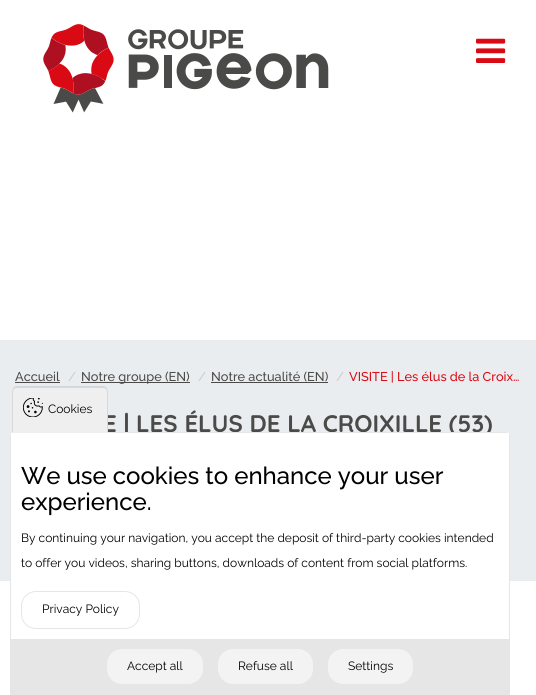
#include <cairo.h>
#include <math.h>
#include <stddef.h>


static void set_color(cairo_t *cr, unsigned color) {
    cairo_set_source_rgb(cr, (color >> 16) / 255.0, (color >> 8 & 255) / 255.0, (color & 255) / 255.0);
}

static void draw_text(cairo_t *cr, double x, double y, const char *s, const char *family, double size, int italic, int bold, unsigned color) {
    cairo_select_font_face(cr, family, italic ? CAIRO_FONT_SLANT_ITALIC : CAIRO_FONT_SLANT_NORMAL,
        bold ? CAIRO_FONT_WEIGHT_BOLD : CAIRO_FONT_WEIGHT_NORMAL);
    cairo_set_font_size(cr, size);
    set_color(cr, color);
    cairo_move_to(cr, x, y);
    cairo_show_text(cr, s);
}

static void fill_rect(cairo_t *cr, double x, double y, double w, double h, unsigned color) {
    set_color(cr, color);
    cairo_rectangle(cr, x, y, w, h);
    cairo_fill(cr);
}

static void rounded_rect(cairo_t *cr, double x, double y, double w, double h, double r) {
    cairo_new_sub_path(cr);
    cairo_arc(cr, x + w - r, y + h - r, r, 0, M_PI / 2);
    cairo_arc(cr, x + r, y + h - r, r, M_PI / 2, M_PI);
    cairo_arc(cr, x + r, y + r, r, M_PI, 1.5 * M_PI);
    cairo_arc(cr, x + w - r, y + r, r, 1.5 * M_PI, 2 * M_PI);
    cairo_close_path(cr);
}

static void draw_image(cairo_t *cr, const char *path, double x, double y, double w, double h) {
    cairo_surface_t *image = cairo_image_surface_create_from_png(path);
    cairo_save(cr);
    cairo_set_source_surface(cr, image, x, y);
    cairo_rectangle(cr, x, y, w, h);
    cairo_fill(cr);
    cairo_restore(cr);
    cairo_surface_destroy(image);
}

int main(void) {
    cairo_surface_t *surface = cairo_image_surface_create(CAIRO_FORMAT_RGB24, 536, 695);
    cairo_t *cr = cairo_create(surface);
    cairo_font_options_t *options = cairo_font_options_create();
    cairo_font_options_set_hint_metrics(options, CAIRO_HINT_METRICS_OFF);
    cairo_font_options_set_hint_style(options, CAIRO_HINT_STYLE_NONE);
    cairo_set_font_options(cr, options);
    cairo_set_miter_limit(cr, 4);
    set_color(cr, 0xE9EDEF);
    cairo_paint(cr);
    fill_rect(cr, 0, 0, 536, 340, 0xFFFFFF);
    fill_rect(cr, 0, 340, 536, 1, 0xECECEC);
    draw_image(cr, "assets/img1.png", 43, 24, 286, 89);
    draw_image(cr, "assets/img2.png", 476, 38, 30, 25);
    draw_text(cr, 15, 381, "Accueil", "Raleway Medium", 12.75, 0, 0, 0x4A4A49);
    fill_rect(cr, 15, 382, 45, 1, 0x4A4A49);
    draw_text(cr, 68, 381, "/", "Raleway Medium", 12.75, 0, 0, 0xCCCCCC);
    fill_rect(cr, 81, 382, 109, 1, 0x4A4A49);
    draw_text(cr, 81, 381, "Notre groupe (EN)", "Raleway Medium", 12.75, 0, 0, 0x4A4A49);
    draw_text(cr, 198, 381, "/", "Raleway Medium", 12.75, 0, 0, 0xCCCCCC);
    draw_text(cr, 211, 381, "Notre actualité (EN)", "Raleway Medium", 12.75, 0, 0, 0x4A4A49);
    fill_rect(cr, 211, 382, 117, 1, 0x4A4A49);
    draw_text(cr, 336, 381, "/", "Raleway Medium", 12.75, 0, 0, 0xCCCCCC);
    draw_text(cr, 349, 381, "VISITE | Les élus de la Croix…", "Raleway Medium", 12.75, 0, 0, 0xDA0A15);
    draw_text(cr, 103, 432, "E | LES ÉLUS DE LA CROIXILLE (53)", "Quicksand", 24, 0, 1, 0x4A4A49);
    fill_rect(cr, 0, 581, 536, 114, 0xFFFFFF);
    cairo_new_path(cr);
    cairo_move_to(cr, 15, 432);
    cairo_line_to(cr, 505, 432);
    cairo_curve_to(cr, 508, 432, 510, 434, 510, 437);
    cairo_line_to(cr, 510, 695);
    cairo_line_to(cr, 10, 695);
    cairo_line_to(cr, 10, 437);
    cairo_curve_to(cr, 10, 434, 12, 432, 15, 432);
    cairo_close_path(cr);
    cairo_fill(cr);
    cairo_new_path(cr);
    cairo_move_to(cr, 15, 432.5);
    cairo_line_to(cr, 505, 432.5);
    cairo_curve_to(cr, 507.5, 432.5, 509.5, 434.5, 509.5, 437);
    cairo_line_to(cr, 509.5, 694.5);
    cairo_line_to(cr, 10.5, 694.5);
    cairo_line_to(cr, 10.5, 437);
    cairo_curve_to(cr, 10.5, 434.5, 12.5, 432.5, 15, 432.5);
    cairo_close_path(cr);
    cairo_set_source_rgba(cr, 0, 0, 0, 0.1);
    cairo_set_line_width(cr, 1);
    cairo_stroke(cr);
    set_color(cr, 0xEFEFEF);
    cairo_new_path(cr);
    cairo_move_to(cr, 17, 387);
    cairo_line_to(cr, 103, 387);
    cairo_curve_to(cr, 106, 387, 108, 389, 108, 392);
    cairo_line_to(cr, 108, 433);
    cairo_line_to(cr, 12, 433);
    cairo_line_to(cr, 12, 392);
    cairo_curve_to(cr, 12, 389, 14, 387, 17, 387);
    cairo_close_path(cr);
    cairo_fill(cr);
    cairo_set_source_rgba(cr, 0, 0, 0, 0.1);
    cairo_set_fill_rule(cr, CAIRO_FILL_RULE_EVEN_ODD);
    cairo_new_path(cr);
    cairo_move_to(cr, 17, 386);
    cairo_line_to(cr, 103, 386);
    cairo_curve_to(cr, 106, 386, 108, 389, 108, 392);
    cairo_line_to(cr, 108, 432);
    cairo_line_to(cr, 12, 432);
    cairo_line_to(cr, 12, 392);
    cairo_curve_to(cr, 12, 389, 14, 386, 17, 386);
    cairo_close_path(cr);
    cairo_move_to(cr, 17, 388);
    cairo_line_to(cr, 103, 388);
    cairo_curve_to(cr, 105, 388, 107, 389, 107, 392);
    cairo_line_to(cr, 107, 432);
    cairo_line_to(cr, 13, 432);
    cairo_line_to(cr, 13, 392);
    cairo_curve_to(cr, 13, 389, 15, 388, 17, 388);
    cairo_close_path(cr);
    cairo_fill(cr);
    draw_image(cr, "assets/img3.png", 23, 398, 20, 19);
    draw_text(cr, 48, 413, "Cookies", "Raleway", 12, 0, 0, 0x000000);
    fill_rect(cr, 11, 433, 498, 3, 0xFFFFFF);
    draw_text(cr, 21, 484, "We use cookies to enhance your user", "Raleway Medium", 24, 0, 0, 0x000000);
    draw_text(cr, 21, 510, "experience.", "Raleway Medium", 24, 0, 0, 0x000000);
    draw_text(cr, 21, 542, "By continuing your navigation, you accept the deposit of third-party cookies intended", "Raleway", 12, 0, 0, 0x000000);
    draw_text(cr, 21, 567, "to offer you videos, sharing buttons, downloads of content from social platforms.", "Raleway", 12, 0, 0, 0x000000);
    rounded_rect(cr, 21.5, 591.5, 118, 37, 14.5);
    set_color(cr, 0xE6E6E6);
    cairo_stroke(cr);
    draw_text(cr, 42, 613, "Privacy Policy", "Raleway", 12, 0, 0, 0x000000);
    fill_rect(cr, 11, 639, 498, 55, 0xE6E6E6);
    set_color(cr, 0xF3F3F3);
    rounded_rect(cr, 107, 649, 96, 35, 15);
    cairo_fill(cr);
    draw_text(cr, 127, 670, "Accept all", "Raleway", 12, 0, 0, 0x000000);
    set_color(cr, 0xF3F3F3);
    rounded_rect(cr, 218, 649, 95, 35, 15);
    cairo_fill(cr);
    draw_text(cr, 238, 670, "Refuse all", "Raleway", 12, 0, 0, 0x000000);
    set_color(cr, 0xF3F3F3);
    rounded_rect(cr, 328, 649, 85, 35, 15);
    cairo_fill(cr);
    draw_text(cr, 348, 670, "Settings", "Raleway", 12, 0, 0, 0x000000);
    cairo_surface_write_to_png(surface, "output.png");
    cairo_font_options_destroy(options);
    cairo_destroy(cr);
    cairo_surface_destroy(surface);
    return 0;
}
